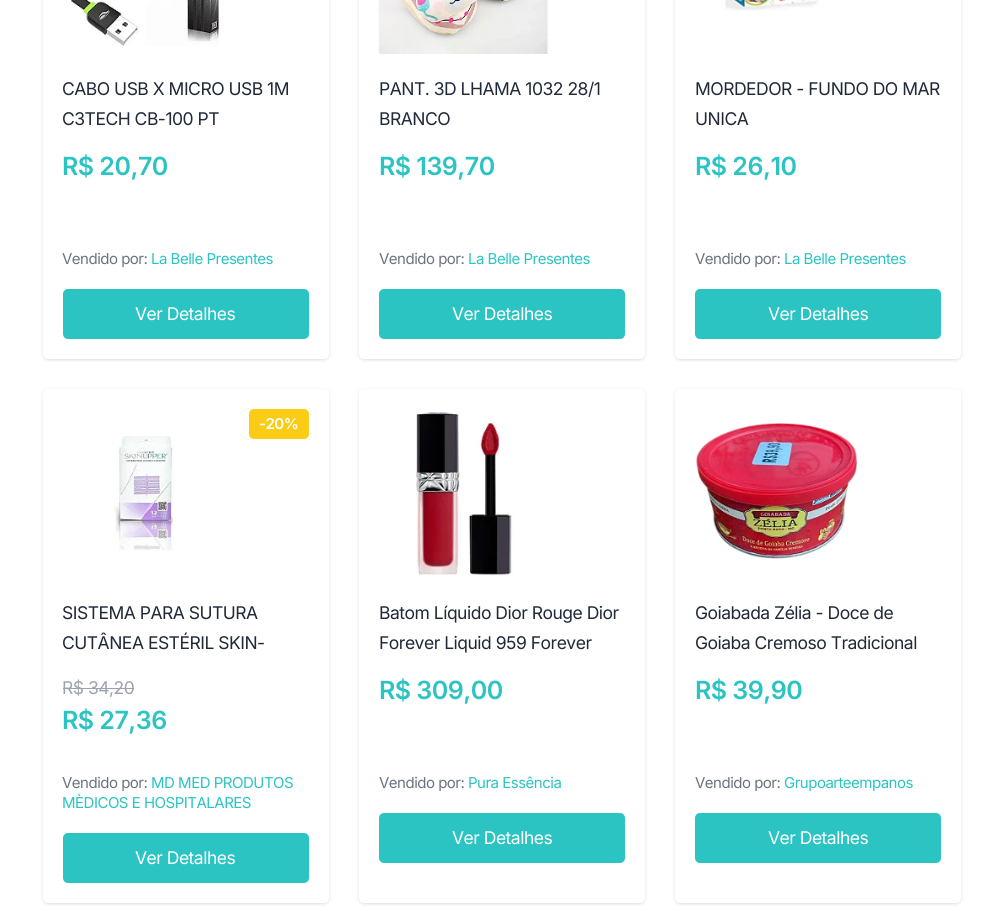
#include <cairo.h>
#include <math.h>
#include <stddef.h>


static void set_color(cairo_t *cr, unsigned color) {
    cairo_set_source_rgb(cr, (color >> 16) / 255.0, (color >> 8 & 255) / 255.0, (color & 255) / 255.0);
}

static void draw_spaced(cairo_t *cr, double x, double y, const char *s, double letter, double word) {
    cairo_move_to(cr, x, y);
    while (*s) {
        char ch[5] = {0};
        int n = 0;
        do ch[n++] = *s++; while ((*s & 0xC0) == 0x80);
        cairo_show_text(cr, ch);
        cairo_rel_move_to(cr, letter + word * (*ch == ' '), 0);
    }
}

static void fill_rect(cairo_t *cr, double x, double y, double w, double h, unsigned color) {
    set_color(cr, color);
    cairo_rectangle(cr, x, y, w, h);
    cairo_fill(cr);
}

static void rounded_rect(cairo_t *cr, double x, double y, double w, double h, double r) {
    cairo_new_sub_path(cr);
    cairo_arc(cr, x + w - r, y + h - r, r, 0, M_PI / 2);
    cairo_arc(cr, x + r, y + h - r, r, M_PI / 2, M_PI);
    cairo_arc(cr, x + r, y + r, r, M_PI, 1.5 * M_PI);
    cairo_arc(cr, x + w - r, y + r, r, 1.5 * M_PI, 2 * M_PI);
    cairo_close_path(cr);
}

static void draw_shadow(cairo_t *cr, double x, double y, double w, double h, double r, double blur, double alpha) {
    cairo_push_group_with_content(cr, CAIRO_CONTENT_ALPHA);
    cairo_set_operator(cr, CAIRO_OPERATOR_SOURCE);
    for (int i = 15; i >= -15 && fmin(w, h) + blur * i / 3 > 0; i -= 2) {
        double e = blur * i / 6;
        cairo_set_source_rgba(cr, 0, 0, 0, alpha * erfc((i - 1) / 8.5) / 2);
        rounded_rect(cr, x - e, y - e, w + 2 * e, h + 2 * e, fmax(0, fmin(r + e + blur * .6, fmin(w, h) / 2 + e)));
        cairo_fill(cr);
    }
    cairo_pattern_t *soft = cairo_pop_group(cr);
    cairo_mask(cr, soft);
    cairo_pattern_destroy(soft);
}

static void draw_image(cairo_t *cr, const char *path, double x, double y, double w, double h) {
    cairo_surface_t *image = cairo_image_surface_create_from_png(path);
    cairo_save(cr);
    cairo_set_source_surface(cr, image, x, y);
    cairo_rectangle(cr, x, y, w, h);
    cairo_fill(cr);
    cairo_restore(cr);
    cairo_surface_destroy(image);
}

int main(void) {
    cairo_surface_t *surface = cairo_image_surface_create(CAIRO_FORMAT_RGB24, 1003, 911);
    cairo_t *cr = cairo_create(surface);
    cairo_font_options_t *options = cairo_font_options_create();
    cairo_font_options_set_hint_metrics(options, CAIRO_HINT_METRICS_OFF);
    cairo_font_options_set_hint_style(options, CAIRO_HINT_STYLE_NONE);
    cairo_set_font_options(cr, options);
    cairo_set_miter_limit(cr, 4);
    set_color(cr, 0xFFFFFF);
    cairo_paint(cr);
    set_color(cr, 0x000000);
    draw_shadow(cr, 44, -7, 284, 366, 4, 1, 0.1);
    draw_shadow(cr, 43, -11, 286, 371, 5, 2, 0.1);
    set_color(cr, 0xFFFFFF);
    rounded_rect(cr, 43, -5, 286, 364, 5);
    cairo_fill(cr);
    draw_image(cr, "assets/img1.png", 71, 0, 148, 46);
    cairo_select_font_face(cr, "Inter", CAIRO_FONT_SLANT_NORMAL, CAIRO_FONT_WEIGHT_NORMAL);
    cairo_set_font_size(cr, 17.5);
    set_color(cr, 0x1F2937);
    draw_spaced(cr, 62, 95, "CABO USB X MICRO USB 1M", -0.5, 0);
    draw_spaced(cr, 62, 125, "C3TECH CB-100 PT", -0.5, 0);
    cairo_select_font_face(cr, "Inter SemiBold", CAIRO_FONT_SLANT_NORMAL, CAIRO_FONT_WEIGHT_NORMAL);
    cairo_set_font_size(cr, 25);
    set_color(cr, 0x2BC4C3);
    draw_spaced(cr, 62, 175, "R$ 20,70", -0.5, 0);
    cairo_select_font_face(cr, "Inter", CAIRO_FONT_SLANT_NORMAL, CAIRO_FONT_WEIGHT_NORMAL);
    cairo_set_font_size(cr, 15);
    set_color(cr, 0x6B7280);
    draw_spaced(cr, 62, 264, "Vendido por:", -0.5, 0);
    set_color(cr, 0x2BC4C3);
    draw_spaced(cr, 151, 264, "La Belle Presentes", -0.5, 0);
    rounded_rect(cr, 63, 289, 246, 50, 5);
    cairo_fill(cr);
    cairo_set_font_size(cr, 17.5);
    set_color(cr, 0xFFFFFF);
    draw_spaced(cr, 135, 320, "Ver Detalhes", -0.5, 0);
    set_color(cr, 0x000000);
    draw_shadow(cr, 360, -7, 284, 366, 4, 1, 0.1);
    draw_shadow(cr, 359, -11, 286, 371, 5, 2, 0.1);
    set_color(cr, 0xFFFFFF);
    rounded_rect(cr, 359, -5, 286, 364, 5);
    cairo_fill(cr);
    draw_image(cr, "assets/img2.png", 378, 0, 170, 54);
    set_color(cr, 0x1F2937);
    draw_spaced(cr, 379, 95, "PANT. 3D LHAMA 1032 28/1", -0.5, 0);
    draw_spaced(cr, 379, 125, "BRANCO", -0.5, 0);
    cairo_select_font_face(cr, "Inter SemiBold", CAIRO_FONT_SLANT_NORMAL, CAIRO_FONT_WEIGHT_NORMAL);
    cairo_set_font_size(cr, 25);
    set_color(cr, 0x2BC4C3);
    draw_spaced(cr, 379, 175, "R$ 139,70", -0.5, 0);
    cairo_select_font_face(cr, "Inter", CAIRO_FONT_SLANT_NORMAL, CAIRO_FONT_WEIGHT_NORMAL);
    cairo_set_font_size(cr, 15);
    set_color(cr, 0x6B7280);
    draw_spaced(cr, 379, 264, "Vendido por:", -0.5, 0);
    set_color(cr, 0x2BC4C3);
    draw_spaced(cr, 468, 264, "La Belle Presentes", -0.5, 0);
    rounded_rect(cr, 379, 289, 246, 50, 5);
    cairo_fill(cr);
    cairo_set_font_size(cr, 17.5);
    set_color(cr, 0xFFFFFF);
    draw_spaced(cr, 452, 320, "Ver Detalhes", -0.5, 0);
    set_color(cr, 0x000000);
    draw_shadow(cr, 676, -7, 284, 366, 4, 1, 0.1);
    draw_shadow(cr, 675, -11, 286, 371, 5, 2, 0.1);
    set_color(cr, 0xFFFFFF);
    rounded_rect(cr, 675, -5, 286, 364, 5);
    cairo_fill(cr);
    draw_image(cr, "assets/img3.png", 725, 0, 94, 11);
    set_color(cr, 0x1F2937);
    draw_spaced(cr, 695, 95, "MORDEDOR - FUNDO DO MAR", -0.5, 0);
    draw_spaced(cr, 695, 125, "UNICA", -0.5, 0);
    cairo_select_font_face(cr, "Inter SemiBold", CAIRO_FONT_SLANT_NORMAL, CAIRO_FONT_WEIGHT_NORMAL);
    cairo_set_font_size(cr, 25);
    set_color(cr, 0x2BC4C3);
    draw_spaced(cr, 695, 175, "R$ 26,10", -0.5, 0);
    cairo_select_font_face(cr, "Inter", CAIRO_FONT_SLANT_NORMAL, CAIRO_FONT_WEIGHT_NORMAL);
    cairo_set_font_size(cr, 15);
    set_color(cr, 0x6B7280);
    draw_spaced(cr, 695, 264, "Vendido por:", -0.5, 0);
    set_color(cr, 0x2BC4C3);
    draw_spaced(cr, 784, 264, "La Belle Presentes", -0.5, 0);
    rounded_rect(cr, 695, 289, 246, 50, 5);
    cairo_fill(cr);
    cairo_set_font_size(cr, 17.5);
    set_color(cr, 0xFFFFFF);
    draw_spaced(cr, 768, 320, "Ver Detalhes", -0.5, 0);
    set_color(cr, 0x000000);
    draw_shadow(cr, 44, 391, 284, 512, 4, 1, 0.1);
    draw_shadow(cr, 43, 390, 286, 514, 5, 2, 0.1);
    set_color(cr, 0xFFFFFF);
    rounded_rect(cr, 43, 389, 286, 514, 5);
    cairo_fill(cr);
    set_color(cr, 0xFACC15);
    rounded_rect(cr, 249, 409, 60, 30, 5);
    cairo_fill(cr);
    cairo_select_font_face(cr, "Inter SemiBold", CAIRO_FONT_SLANT_NORMAL, CAIRO_FONT_WEIGHT_NORMAL);
    cairo_set_font_size(cr, 15);
    set_color(cr, 0xFFFFFF);
    draw_spaced(cr, 259, 429, "-20%", -0.5, 0);
    draw_image(cr, "assets/img4.png", 114, 436, 61, 115);
    cairo_select_font_face(cr, "Inter", CAIRO_FONT_SLANT_NORMAL, CAIRO_FONT_WEIGHT_NORMAL);
    cairo_set_font_size(cr, 17.5);
    set_color(cr, 0x1F2937);
    draw_spaced(cr, 62, 619, "SISTEMA PARA SUTURA", -0.5, 0);
    draw_spaced(cr, 62, 649, "CUTÂNEA ESTÉRIL SKIN-", -0.5, 0);
    set_color(cr, 0x9CA3AF);
    draw_spaced(cr, 62, 694, "R$ 34,20", -0.5, 0);
    fill_rect(cr, 63, 688, 71, 1, 0x9CA3AF);
    cairo_select_font_face(cr, "Inter SemiBold", CAIRO_FONT_SLANT_NORMAL, CAIRO_FONT_WEIGHT_NORMAL);
    cairo_set_font_size(cr, 25);
    set_color(cr, 0x2BC4C3);
    draw_spaced(cr, 62, 729, "R$ 27,36", -0.5, 0);
    cairo_select_font_face(cr, "Inter", CAIRO_FONT_SLANT_NORMAL, CAIRO_FONT_WEIGHT_NORMAL);
    cairo_set_font_size(cr, 15);
    set_color(cr, 0x6B7280);
    draw_spaced(cr, 62, 788, "Vendido por:", -0.5, 0);
    set_color(cr, 0x2BC4C3);
    draw_spaced(cr, 151, 788, "MD MED PRODUTOS", -0.5, 0);
    draw_spaced(cr, 62, 808, "MÈDICOS E HOSPITALARES", -0.5, 0);
    rounded_rect(cr, 63, 833, 246, 50, 5);
    cairo_fill(cr);
    cairo_set_font_size(cr, 17.5);
    set_color(cr, 0xFFFFFF);
    draw_spaced(cr, 135, 864, "Ver Detalhes", -0.5, 0);
    set_color(cr, 0x000000);
    draw_shadow(cr, 360, 391, 284, 512, 4, 1, 0.1);
    draw_shadow(cr, 359, 390, 286, 514, 5, 2, 0.1);
    set_color(cr, 0xFFFFFF);
    rounded_rect(cr, 359, 389, 286, 514, 5);
    cairo_fill(cr);
    draw_image(cr, "assets/img5.png", 416, 412, 98, 164);
    set_color(cr, 0x1F2937);
    draw_spaced(cr, 379, 619, "Batom Líquido Dior Rouge Dior", -0.5, 0);
    draw_spaced(cr, 379, 649, "Forever Liquid 959 Forever", -0.5, 0);
    cairo_select_font_face(cr, "Inter SemiBold", CAIRO_FONT_SLANT_NORMAL, CAIRO_FONT_WEIGHT_NORMAL);
    cairo_set_font_size(cr, 25);
    set_color(cr, 0x2BC4C3);
    draw_spaced(cr, 379, 699, "R$ 309,00", -0.5, 0);
    cairo_select_font_face(cr, "Inter", CAIRO_FONT_SLANT_NORMAL, CAIRO_FONT_WEIGHT_NORMAL);
    cairo_set_font_size(cr, 15);
    set_color(cr, 0x6B7280);
    draw_spaced(cr, 379, 788, "Vendido por:", -0.5, 0);
    set_color(cr, 0x2BC4C3);
    draw_spaced(cr, 468, 788, "Pura Essência", -0.5, 0);
    rounded_rect(cr, 379, 813, 246, 50, 5);
    cairo_fill(cr);
    cairo_set_font_size(cr, 17.5);
    set_color(cr, 0xFFFFFF);
    draw_spaced(cr, 452, 844, "Ver Detalhes", -0.5, 0);
    set_color(cr, 0x000000);
    draw_shadow(cr, 676, 391, 284, 512, 4, 1, 0.1);
    draw_shadow(cr, 675, 390, 286, 514, 5, 2, 0.1);
    set_color(cr, 0xFFFFFF);
    rounded_rect(cr, 675, 389, 286, 514, 5);
    cairo_fill(cr);
    draw_image(cr, "assets/img6.png", 696, 423, 161, 136);
    set_color(cr, 0x1F2937);
    draw_spaced(cr, 695, 619, "Goiabada Zélia - Doce de", -0.5, 0);
    draw_spaced(cr, 695, 649, "Goiaba Cremoso Tradicional", -0.5, 0);
    cairo_select_font_face(cr, "Inter SemiBold", CAIRO_FONT_SLANT_NORMAL, CAIRO_FONT_WEIGHT_NORMAL);
    cairo_set_font_size(cr, 25);
    set_color(cr, 0x2BC4C3);
    draw_spaced(cr, 695, 699, "R$ 39,90", -0.5, 0);
    cairo_select_font_face(cr, "Inter", CAIRO_FONT_SLANT_NORMAL, CAIRO_FONT_WEIGHT_NORMAL);
    cairo_set_font_size(cr, 15);
    set_color(cr, 0x6B7280);
    draw_spaced(cr, 695, 788, "Vendido por:", -0.5, 0);
    set_color(cr, 0x2BC4C3);
    draw_spaced(cr, 784, 788, "Grupoarteempanos", -0.5, 0);
    rounded_rect(cr, 695, 813, 246, 50, 5);
    cairo_fill(cr);
    cairo_set_font_size(cr, 17.5);
    set_color(cr, 0xFFFFFF);
    draw_spaced(cr, 768, 844, "Ver Detalhes", -0.5, 0);
    cairo_surface_write_to_png(surface, "output.png");
    cairo_font_options_destroy(options);
    cairo_destroy(cr);
    cairo_surface_destroy(surface);
    return 0;
}
